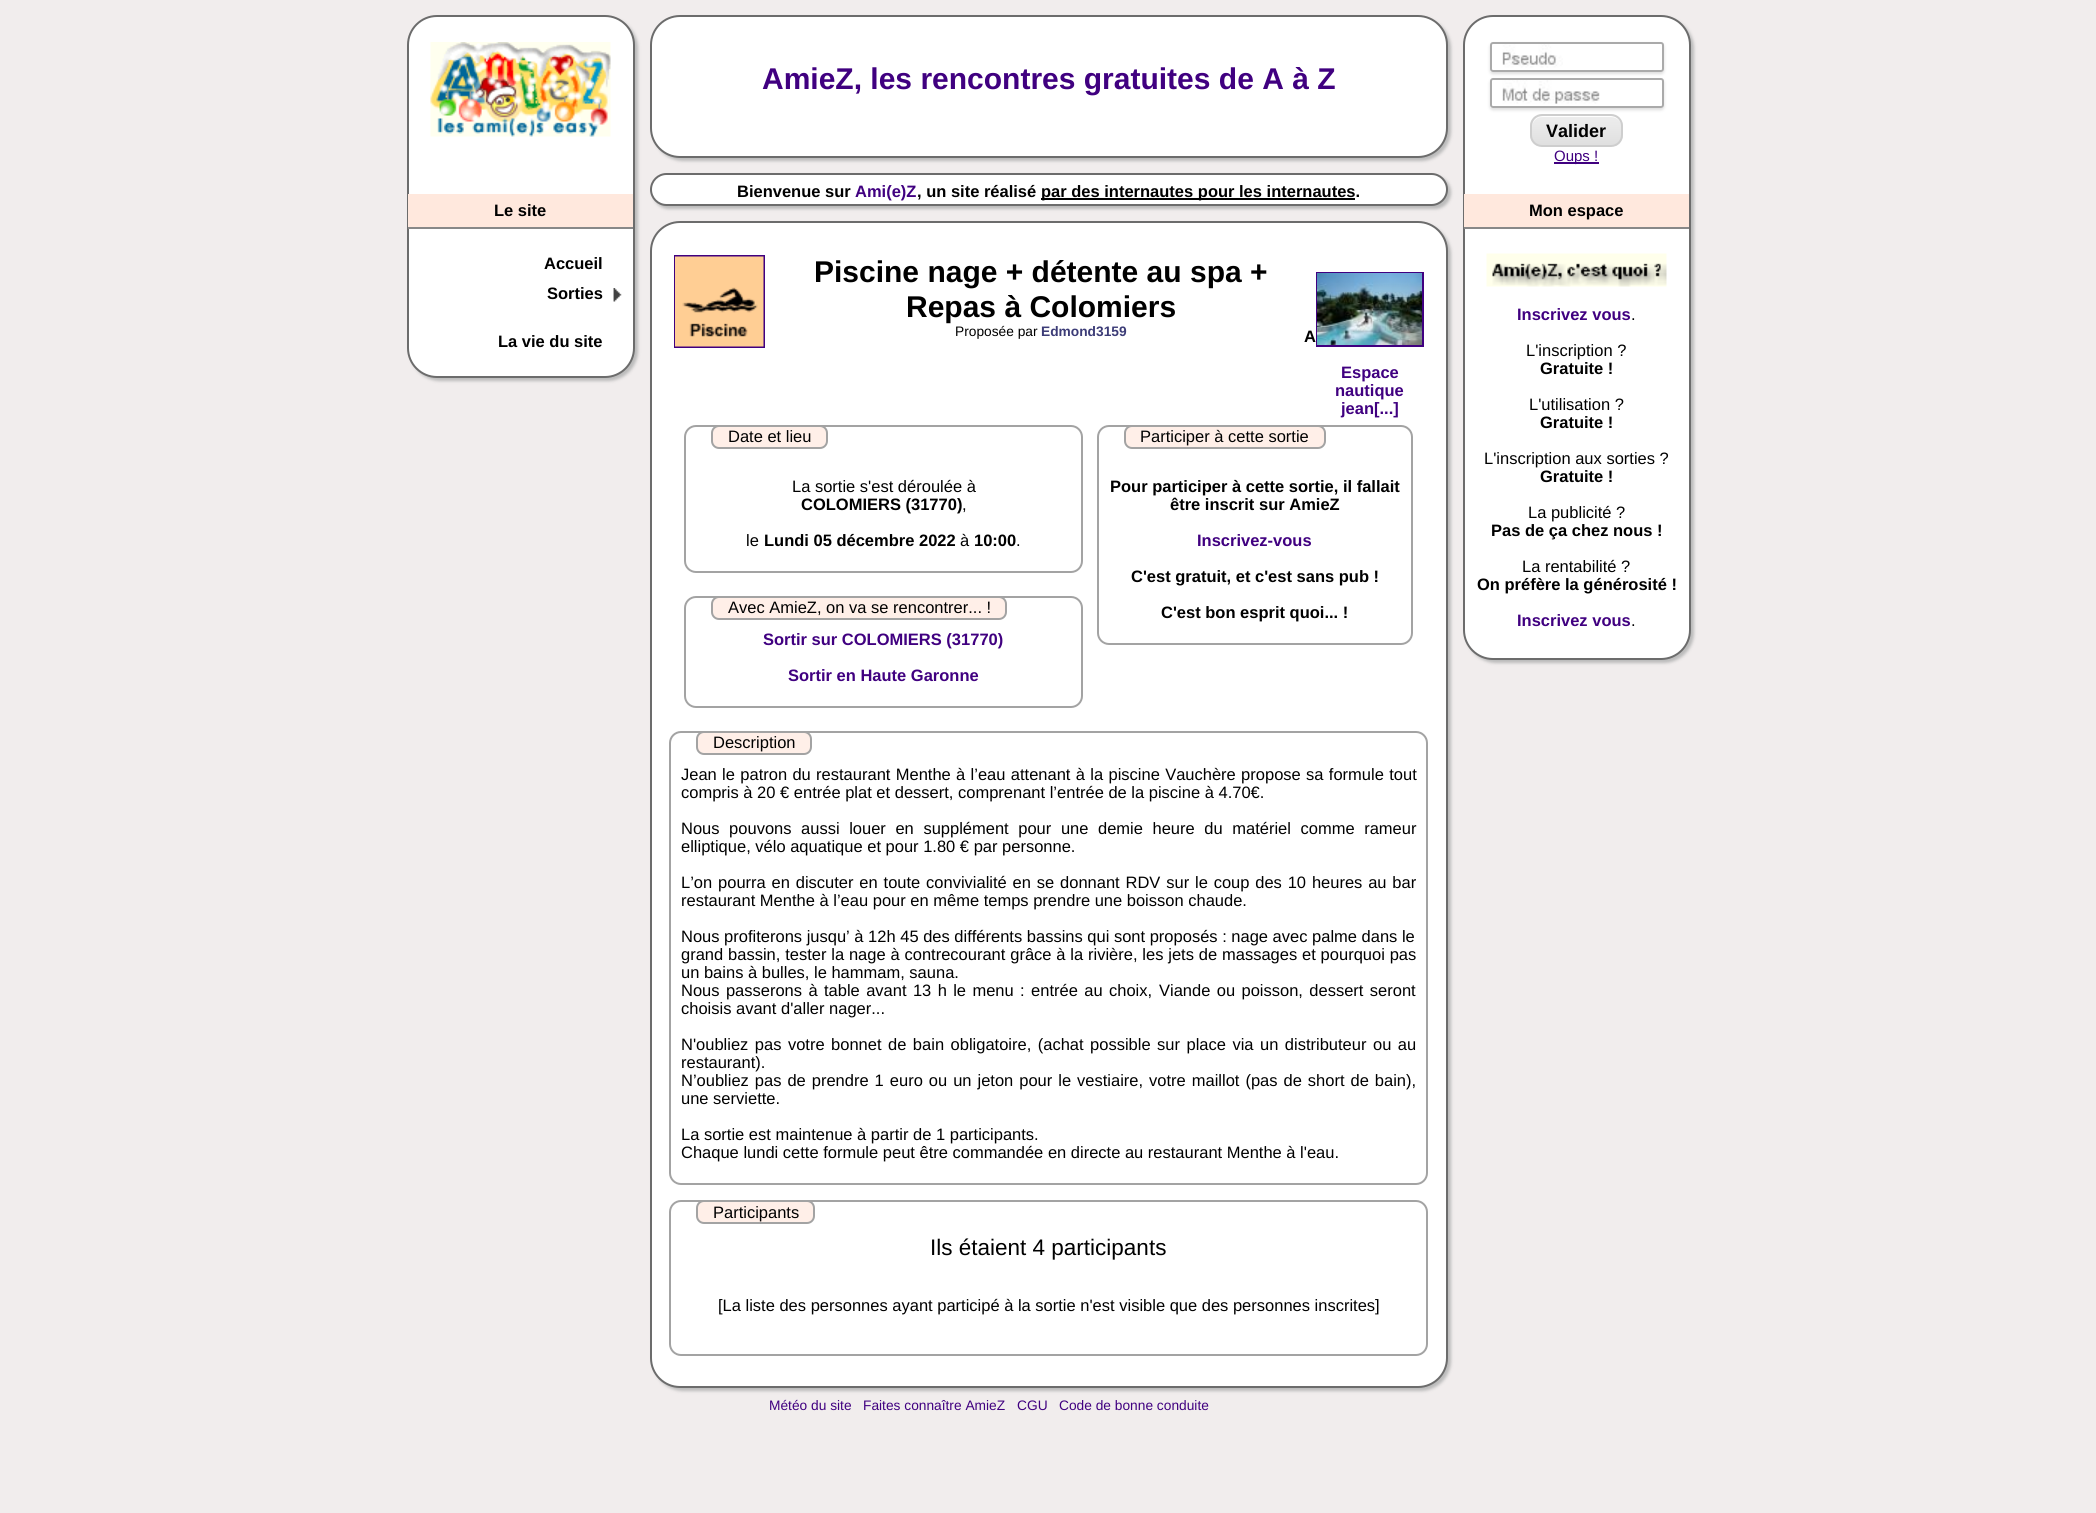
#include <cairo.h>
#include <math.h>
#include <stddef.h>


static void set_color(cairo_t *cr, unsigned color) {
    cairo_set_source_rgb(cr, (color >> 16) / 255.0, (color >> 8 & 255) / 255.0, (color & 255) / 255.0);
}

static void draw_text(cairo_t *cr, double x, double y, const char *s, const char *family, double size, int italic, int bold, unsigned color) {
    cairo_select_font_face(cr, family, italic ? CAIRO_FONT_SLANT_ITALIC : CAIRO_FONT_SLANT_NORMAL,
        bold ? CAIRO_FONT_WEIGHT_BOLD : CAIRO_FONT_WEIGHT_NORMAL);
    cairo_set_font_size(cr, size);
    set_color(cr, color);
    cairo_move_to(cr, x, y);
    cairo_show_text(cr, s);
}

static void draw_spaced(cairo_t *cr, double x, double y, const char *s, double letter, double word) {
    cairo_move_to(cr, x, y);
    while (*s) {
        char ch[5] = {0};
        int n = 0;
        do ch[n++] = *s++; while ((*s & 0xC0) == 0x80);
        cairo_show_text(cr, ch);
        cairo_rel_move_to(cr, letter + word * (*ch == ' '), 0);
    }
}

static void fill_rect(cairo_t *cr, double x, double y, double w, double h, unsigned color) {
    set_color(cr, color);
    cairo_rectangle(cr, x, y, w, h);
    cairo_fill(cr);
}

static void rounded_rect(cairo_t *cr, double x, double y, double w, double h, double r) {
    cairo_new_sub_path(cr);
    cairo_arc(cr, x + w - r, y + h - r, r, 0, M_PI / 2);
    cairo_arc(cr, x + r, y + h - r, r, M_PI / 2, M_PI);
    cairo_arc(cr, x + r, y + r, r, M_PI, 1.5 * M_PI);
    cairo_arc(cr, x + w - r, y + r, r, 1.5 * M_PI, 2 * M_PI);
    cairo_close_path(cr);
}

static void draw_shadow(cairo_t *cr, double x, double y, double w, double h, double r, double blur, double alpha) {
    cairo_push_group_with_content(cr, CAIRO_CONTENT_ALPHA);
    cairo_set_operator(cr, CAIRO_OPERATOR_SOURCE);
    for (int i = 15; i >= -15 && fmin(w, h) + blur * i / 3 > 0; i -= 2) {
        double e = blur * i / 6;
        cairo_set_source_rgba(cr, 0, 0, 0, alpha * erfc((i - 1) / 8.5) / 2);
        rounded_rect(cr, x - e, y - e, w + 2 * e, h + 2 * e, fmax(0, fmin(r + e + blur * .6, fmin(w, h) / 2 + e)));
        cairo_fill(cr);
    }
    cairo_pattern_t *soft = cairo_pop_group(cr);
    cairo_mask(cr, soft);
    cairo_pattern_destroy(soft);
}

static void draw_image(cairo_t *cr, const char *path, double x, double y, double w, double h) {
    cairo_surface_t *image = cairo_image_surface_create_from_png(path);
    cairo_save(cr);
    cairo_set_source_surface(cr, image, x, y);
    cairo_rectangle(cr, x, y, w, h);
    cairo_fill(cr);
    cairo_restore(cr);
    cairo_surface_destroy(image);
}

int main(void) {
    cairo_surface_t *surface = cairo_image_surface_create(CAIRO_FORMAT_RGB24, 2096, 1513);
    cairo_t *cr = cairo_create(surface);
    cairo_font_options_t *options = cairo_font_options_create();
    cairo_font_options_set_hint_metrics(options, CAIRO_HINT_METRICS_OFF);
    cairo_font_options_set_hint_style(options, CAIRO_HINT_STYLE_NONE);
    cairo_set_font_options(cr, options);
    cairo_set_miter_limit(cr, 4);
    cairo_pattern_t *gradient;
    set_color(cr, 0xF1EDED);
    cairo_paint(cr);
    set_color(cr, 0xBBBBBB);
    draw_shadow(cr, 410, 18, 228, 363, 30, 1.5, 1);
    set_color(cr, 0xFFFFFF);
    rounded_rect(cr, 408, 16, 226, 361, 29);
    cairo_fill_preserve(cr);
    set_color(cr, 0x6C6C6C);
    cairo_stroke(cr);
    draw_image(cr, "assets/img1.png", 430, 42, 181, 95);
    fill_rect(cr, 408, 194, 225, 33, 0xFFE8DD);
    fill_rect(cr, 408, 227, 225, 2, 0x888888);
    draw_text(cr, 494, 216, "Le site", "Liberation Sans", 16.5, 0, 1, 0x000000);
    draw_text(cr, 544, 269, "Accueil", "Liberation Sans", 16.5, 0, 1, 0x000000);
    draw_text(cr, 547, 299, "Sorties", "Liberation Sans", 16.5, 0, 1, 0x000000);
    draw_image(cr, "assets/img2.png", 613, 288, 9, 14);
    draw_text(cr, 498, 347, "La vie du site", "Liberation Sans", 16.5, 0, 1, 0x000000);
    set_color(cr, 0xBBBBBB);
    draw_shadow(cr, 653, 18, 798, 143, 30, 1.5, 1);
    set_color(cr, 0xFFFFFF);
    rounded_rect(cr, 651, 16, 796, 141, 29);
    cairo_fill_preserve(cr);
    set_color(cr, 0x6C6C6C);
    cairo_stroke(cr);
    draw_text(cr, 762, 89, "AmieZ, les rencontres gratuites de A à Z", "Liberation Sans", 30, 0, 1, 0x400080);
    set_color(cr, 0xBBBBBB);
    draw_shadow(cr, 653, 176, 798, 33, 16.5, 1.5, 1);
    set_color(cr, 0xFFFFFF);
    rounded_rect(cr, 651, 174, 796, 31, 15.5);
    cairo_fill_preserve(cr);
    set_color(cr, 0x6C6C6C);
    cairo_stroke(cr);
    draw_text(cr, 737, 197, "Bienvenue sur", "Liberation Sans", 16.5, 0, 1, 0x000000);
    draw_text(cr, 855, 197, "Ami(e)Z", "Liberation Sans", 16.5, 0, 1, 0x400080);
    draw_text(cr, 917, 197, ", un site réalisé", "Liberation Sans", 16.5, 0, 1, 0x000000);
    fill_rect(cr, 1041, 198, 314, 2, 0x000000);
    draw_text(cr, 1041, 197, "par des internautes pour les internautes.", "Liberation Sans", 16.5, 0, 1, 0x000000);
    set_color(cr, 0xBBBBBB);
    draw_shadow(cr, 1466, 18, 228, 645, 30, 1.5, 1);
    set_color(cr, 0xFFFFFF);
    rounded_rect(cr, 1464, 16, 226, 643, 29);
    cairo_fill_preserve(cr);
    set_color(cr, 0x6C6C6C);
    cairo_stroke(cr);
    set_color(cr, 0xDDDDDD);
    draw_shadow(cr, 1490, 44, 174, 30, 3, 1.5, 1);
    set_color(cr, 0xFFFFFF);
    rounded_rect(cr, 1490, 42, 174, 30, 3);
    cairo_fill(cr);
    draw_image(cr, "assets/img3.png", 1490, 44, 73, 28);
    rounded_rect(cr, 1491, 43, 172, 28, 2);
    set_color(cr, 0xAAAAAA);
    cairo_stroke(cr);
    set_color(cr, 0xDDDDDD);
    draw_shadow(cr, 1490, 80, 174, 30, 3, 1.5, 1);
    set_color(cr, 0xFFFFFF);
    rounded_rect(cr, 1490, 78, 174, 30, 3);
    cairo_fill(cr);
    draw_image(cr, "assets/img4.png", 1490, 80, 110, 28);
    rounded_rect(cr, 1491, 79, 172, 28, 2);
    set_color(cr, 0xAAAAAA);
    cairo_stroke(cr);
    cairo_save(cr);
    rounded_rect(cr, 1530, 114, 93, 33, 12);
    cairo_clip(cr);
    gradient = cairo_pattern_create_linear(1532, 116, 1532, 146);
    cairo_pattern_add_color_stop_rgba(gradient, 0.05, 0.929, 0.929, 0.929, 1);
    cairo_pattern_add_color_stop_rgba(gradient, 1, 0.875, 0.875, 0.875, 1);
    cairo_set_source(cr, gradient);
    cairo_pattern_destroy(gradient);
    cairo_rectangle(cr, 1530, 116, 93, 30);
    cairo_fill(cr);
    cairo_restore(cr);
    set_color(cr, 0xFFFFFF);
    cairo_new_path(cr);
    cairo_move_to(cr, 1542, 117);
    cairo_line_to(cr, 1611, 117);
    cairo_curve_to(cr, 1617, 117, 1622, 122, 1622, 128);
    cairo_curve_to(cr, 1622, 114, 1610, 116, 1600, 116);
    cairo_line_to(cr, 1554, 116);
    cairo_curve_to(cr, 1544, 116, 1532, 114, 1532, 128);
    cairo_curve_to(cr, 1532, 122, 1536, 117, 1542, 117);
    cairo_close_path(cr);
    cairo_fill(cr);
    rounded_rect(cr, 1531, 115, 91, 31, 11);
    set_color(cr, 0xCECECE);
    cairo_stroke(cr);
    draw_text(cr, 1546, 137, "Valider", "Liberation Sans", 18, 0, 1, 0x000000);
    fill_rect(cr, 1554, 162, 45, 2, 0x400080);
    draw_text(cr, 1554, 161, "Oups !", "Liberation Sans", 15, 0, 0, 0x400080);
    fill_rect(cr, 1464, 194, 225, 33, 0xFFE8DD);
    fill_rect(cr, 1464, 227, 225, 2, 0x888888);
    draw_text(cr, 1529, 216, "Mon espace", "Liberation Sans", 16.5, 0, 1, 0x000000);
    draw_image(cr, "assets/img5.png", 1486, 253, 181, 34);
    draw_text(cr, 1517, 320, "Inscrivez vous", "Liberation Sans", 16.5, 0, 1, 0x400080);
    draw_text(cr, 1631, 320, ".", "Liberation Sans", 16.5, 0, 0, 0x000000);
    draw_text(cr, 1526, 356, "L'inscription ?", "Liberation Sans", 16.5, 0, 0, 0x000000);
    draw_text(cr, 1540, 374, "Gratuite !", "Liberation Sans", 16.5, 0, 1, 0x000000);
    draw_text(cr, 1529, 410, "L'utilisation ?", "Liberation Sans", 16.5, 0, 0, 0x000000);
    draw_text(cr, 1540, 428, "Gratuite !", "Liberation Sans", 16.5, 0, 1, 0x000000);
    draw_text(cr, 1484, 464, "L'inscription aux sorties ?", "Liberation Sans", 16.5, 0, 0, 0x000000);
    draw_text(cr, 1540, 482, "Gratuite !", "Liberation Sans", 16.5, 0, 1, 0x000000);
    draw_text(cr, 1528, 518, "La publicité ?", "Liberation Sans", 16.5, 0, 0, 0x000000);
    draw_text(cr, 1491, 536, "Pas de ça chez nous !", "Liberation Sans", 16.5, 0, 1, 0x000000);
    draw_text(cr, 1522, 572, "La rentabilité ?", "Liberation Sans", 16.5, 0, 0, 0x000000);
    draw_text(cr, 1477, 590, "On préfère la générosité !", "Liberation Sans", 16.5, 0, 1, 0x000000);
    draw_text(cr, 1517, 626, "Inscrivez vous", "Liberation Sans", 16.5, 0, 1, 0x400080);
    draw_text(cr, 1631, 626, ".", "Liberation Sans", 16.5, 0, 0, 0x000000);
    set_color(cr, 0xBBBBBB);
    draw_shadow(cr, 653, 224, 798, 1167, 30, 1.5, 1);
    set_color(cr, 0xFFFFFF);
    rounded_rect(cr, 651, 222, 796, 1165, 29);
    cairo_fill_preserve(cr);
    set_color(cr, 0x6C6C6C);
    cairo_stroke(cr);
    cairo_rectangle(cr, 675, 256, 89, 91);
    set_color(cr, 0x400080);
    cairo_stroke(cr);
    draw_image(cr, "assets/img6.png", 675, 256, 89, 91);
    draw_text(cr, 814, 282, "Piscine nage + détente au spa +", "Liberation Sans", 30, 0, 1, 0x000000);
    draw_text(cr, 906, 317, "Repas à Colomiers", "Liberation Sans", 30, 0, 1, 0x000000);
    draw_text(cr, 955, 336, "Proposée par", "Liberation Sans", 13.75, 0, 0, 0x000000);
    draw_text(cr, 1041, 336, "Edmond3159", "Liberation Sans", 13.75, 0, 1, 0x3C3C77);
    draw_text(cr, 1304, 342, "A", "Liberation Sans", 16.5, 0, 1, 0x000000);
    cairo_rectangle(cr, 1317, 273, 106, 73);
    set_color(cr, 0x400080);
    cairo_stroke(cr);
    draw_image(cr, "assets/img7.png", 1317, 273, 105, 72);
    draw_text(cr, 1341, 378, "Espace", "Liberation Sans", 16.5, 0, 1, 0x400080);
    draw_text(cr, 1335, 396, "nautique", "Liberation Sans", 16.5, 0, 1, 0x400080);
    draw_text(cr, 1341, 414, "jean[...]", "Liberation Sans", 16.5, 0, 1, 0x400080);
    rounded_rect(cr, 685, 426, 397, 146, 11);
    set_color(cr, 0xA3A3A3);
    cairo_stroke(cr);
    set_color(cr, 0xFFEFE8);
    rounded_rect(cr, 712, 426, 115, 22, 7);
    cairo_fill_preserve(cr);
    set_color(cr, 0xA3A3A3);
    cairo_stroke(cr);
    draw_text(cr, 728, 442, "Date et lieu", "Liberation Sans", 16.5, 0, 0, 0x000000);
    draw_text(cr, 792, 492, "La sortie s'est déroulée à", "Liberation Sans", 16.5, 0, 0, 0x000000);
    draw_text(cr, 801, 510, "COLOMIERS (31770)", "Liberation Sans", 16.5, 0, 1, 0x000000);
    draw_text(cr, 962, 510, ",", "Liberation Sans", 16.5, 0, 0, 0x000000);
    draw_text(cr, 746, 546, "le", "Liberation Sans", 16.5, 0, 0, 0x000000);
    draw_text(cr, 764, 546, "Lundi 05 décembre 2022", "Liberation Sans", 16.5, 0, 1, 0x000000);
    draw_text(cr, 960, 546, "à", "Liberation Sans", 16.5, 0, 0, 0x000000);
    draw_text(cr, 974, 546, "10:00", "Liberation Sans", 16.5, 0, 1, 0x000000);
    draw_text(cr, 1016, 546, ".", "Liberation Sans", 16.5, 0, 0, 0x000000);
    rounded_rect(cr, 1098, 426, 314, 218, 11);
    set_color(cr, 0xA3A3A3);
    cairo_stroke(cr);
    set_color(cr, 0xFFEFE8);
    rounded_rect(cr, 1125, 426, 200, 22, 7);
    cairo_fill_preserve(cr);
    set_color(cr, 0xA3A3A3);
    cairo_stroke(cr);
    draw_text(cr, 1140, 442, "Participer à cette sortie", "Liberation Sans", 16.5, 0, 0, 0x000000);
    draw_text(cr, 1110, 492, "Pour participer à cette sortie, il fallait", "Liberation Sans", 16.5, 0, 1, 0x000000);
    draw_text(cr, 1170, 510, "être inscrit sur AmieZ", "Liberation Sans", 16.5, 0, 1, 0x000000);
    draw_text(cr, 1197, 546, "Inscrivez-vous", "Liberation Sans", 16.5, 0, 1, 0x400080);
    draw_text(cr, 1131, 582, "C'est gratuit, et c'est sans pub !", "Liberation Sans", 16.5, 0, 1, 0x000000);
    draw_text(cr, 1161, 618, "C'est bon esprit quoi... !", "Liberation Sans", 16.5, 0, 1, 0x000000);
    rounded_rect(cr, 685, 597, 397, 110, 11);
    set_color(cr, 0xA3A3A3);
    cairo_stroke(cr);
    set_color(cr, 0xFFEFE8);
    rounded_rect(cr, 712, 597, 294, 22, 7);
    cairo_fill_preserve(cr);
    set_color(cr, 0xA3A3A3);
    cairo_stroke(cr);
    draw_text(cr, 728, 613, "Avec AmieZ, on va se rencontrer... !", "Liberation Sans", 16.5, 0, 0, 0x000000);
    draw_text(cr, 763, 645, "Sortir sur COLOMIERS (31770)", "Liberation Sans", 16.5, 0, 1, 0x400080);
    draw_text(cr, 788, 681, "Sortir en Haute Garonne", "Liberation Sans", 16.5, 0, 1, 0x400080);
    rounded_rect(cr, 670, 732, 757, 452, 11);
    set_color(cr, 0xA3A3A3);
    cairo_stroke(cr);
    set_color(cr, 0xFFEFE8);
    rounded_rect(cr, 697, 732, 114, 22, 7);
    cairo_fill_preserve(cr);
    set_color(cr, 0xA3A3A3);
    cairo_stroke(cr);
    draw_text(cr, 713, 748, "Description", "Liberation Sans", 16.5, 0, 0, 0x000000);
    draw_spaced(cr, 681, 780, "Jean le patron du restaurant Menthe à l’eau attenant à la piscine Vauchère propose sa formule tout", 0, 0.75);
    draw_text(cr, 681, 798, "compris à 20 € entrée plat et dessert, comprenant l’entrée de la piscine à 4.70€.", "Liberation Sans", 16.5, 0, 0, 0x000000);
    draw_spaced(cr, 681, 834, "Nous pouvons aussi louer en supplément pour une demie heure du matériel comme rameur", 0, 5);
    draw_text(cr, 681, 852, "elliptique, vélo aquatique et pour 1.80 € par personne.", "Liberation Sans", 16.5, 0, 0, 0x000000);
    draw_spaced(cr, 681, 888, "L’on pourra en discuter en toute convivialité en se donnant RDV sur le coup des 10 heures au bar", 0, 1.25);
    draw_text(cr, 681, 906, "restaurant Menthe à l’eau pour en même temps prendre une boisson chaude.", "Liberation Sans", 16.5, 0, 0, 0x000000);
    draw_text(cr, 681, 942, "Nous profiterons jusqu’ à 12h 45 des différents bassins qui sont proposés : nage avec palme dans le", "Liberation Sans", 16.5, 0, 0, 0x000000);
    draw_spaced(cr, 681, 960, "grand bassin, tester la nage à contrecourant grâce à la rivière, les jets de massages et pourquoi pas", 0, 0.25);
    draw_text(cr, 681, 978, "un bains à bulles, le hammam, sauna.", "Liberation Sans", 16.5, 0, 0, 0x000000);
    draw_spaced(cr, 681, 996, "Nous passerons à table avant 13 h le menu : entrée au choix,", 0, 1.8);
    draw_spaced(cr, 1159, 996, "Viande ou poisson, dessert seront", 0, 1.8);
    draw_text(cr, 681, 1014, "choisis avant d'aller nager...", "Liberation Sans", 16.5, 0, 0, 0x000000);
    draw_spaced(cr, 681, 1050, "N'oubliez pas votre bonnet de bain obligatoire, (achat possible sur place via un distributeur ou au", 0, 1.9);
    draw_text(cr, 681, 1068, "restaurant).", "Liberation Sans", 16.5, 0, 0, 0x000000);
    draw_spaced(cr, 681, 1086, "N’oubliez pas de prendre 1 euro ou un jeton pour le vestiaire, votre maillot (pas de short de bain),", 0, 1.4);
    draw_text(cr, 681, 1104, "une serviette.", "Liberation Sans", 16.5, 0, 0, 0x000000);
    draw_text(cr, 681, 1140, "La sortie est maintenue à partir de 1 participants.", "Liberation Sans", 16.5, 0, 0, 0x000000);
    draw_text(cr, 681, 1158, "Chaque lundi cette formule peut être commandée en directe au restaurant Menthe à l'eau.", "Liberation Sans", 16.5, 0, 0, 0x000000);
    rounded_rect(cr, 670, 1201, 757, 154, 11);
    set_color(cr, 0xA3A3A3);
    cairo_stroke(cr);
    set_color(cr, 0xFFEFE8);
    rounded_rect(cr, 697, 1201, 117, 22, 7);
    cairo_fill_preserve(cr);
    set_color(cr, 0xA3A3A3);
    cairo_stroke(cr);
    draw_text(cr, 713, 1218, "Participants", "Liberation Sans", 16.5, 0, 0, 0x000000);
    draw_text(cr, 930, 1255, "Ils étaient 4 participants", "Liberation Sans", 22.5, 0, 0, 0x000000);
    draw_text(cr, 718, 1311, "[La liste des personnes ayant participé à la sortie n'est visible que des personnes inscrites]", "Liberation Sans", 16.5, 0, 0, 0x000000);
    draw_text(cr, 769, 1410, "Météo du site", "Liberation Sans", 13.75, 0, 0, 0x400080);
    draw_text(cr, 863, 1410, "Faites connaître AmieZ", "Liberation Sans", 13.75, 0, 0, 0x400080);
    draw_text(cr, 1017, 1410, "CGU", "Liberation Sans", 13.75, 0, 0, 0x400080);
    draw_text(cr, 1059, 1410, "Code de bonne conduite", "Liberation Sans", 13.75, 0, 0, 0x400080);
    cairo_surface_write_to_png(surface, "output.png");
    cairo_font_options_destroy(options);
    cairo_destroy(cr);
    cairo_surface_destroy(surface);
    return 0;
}
